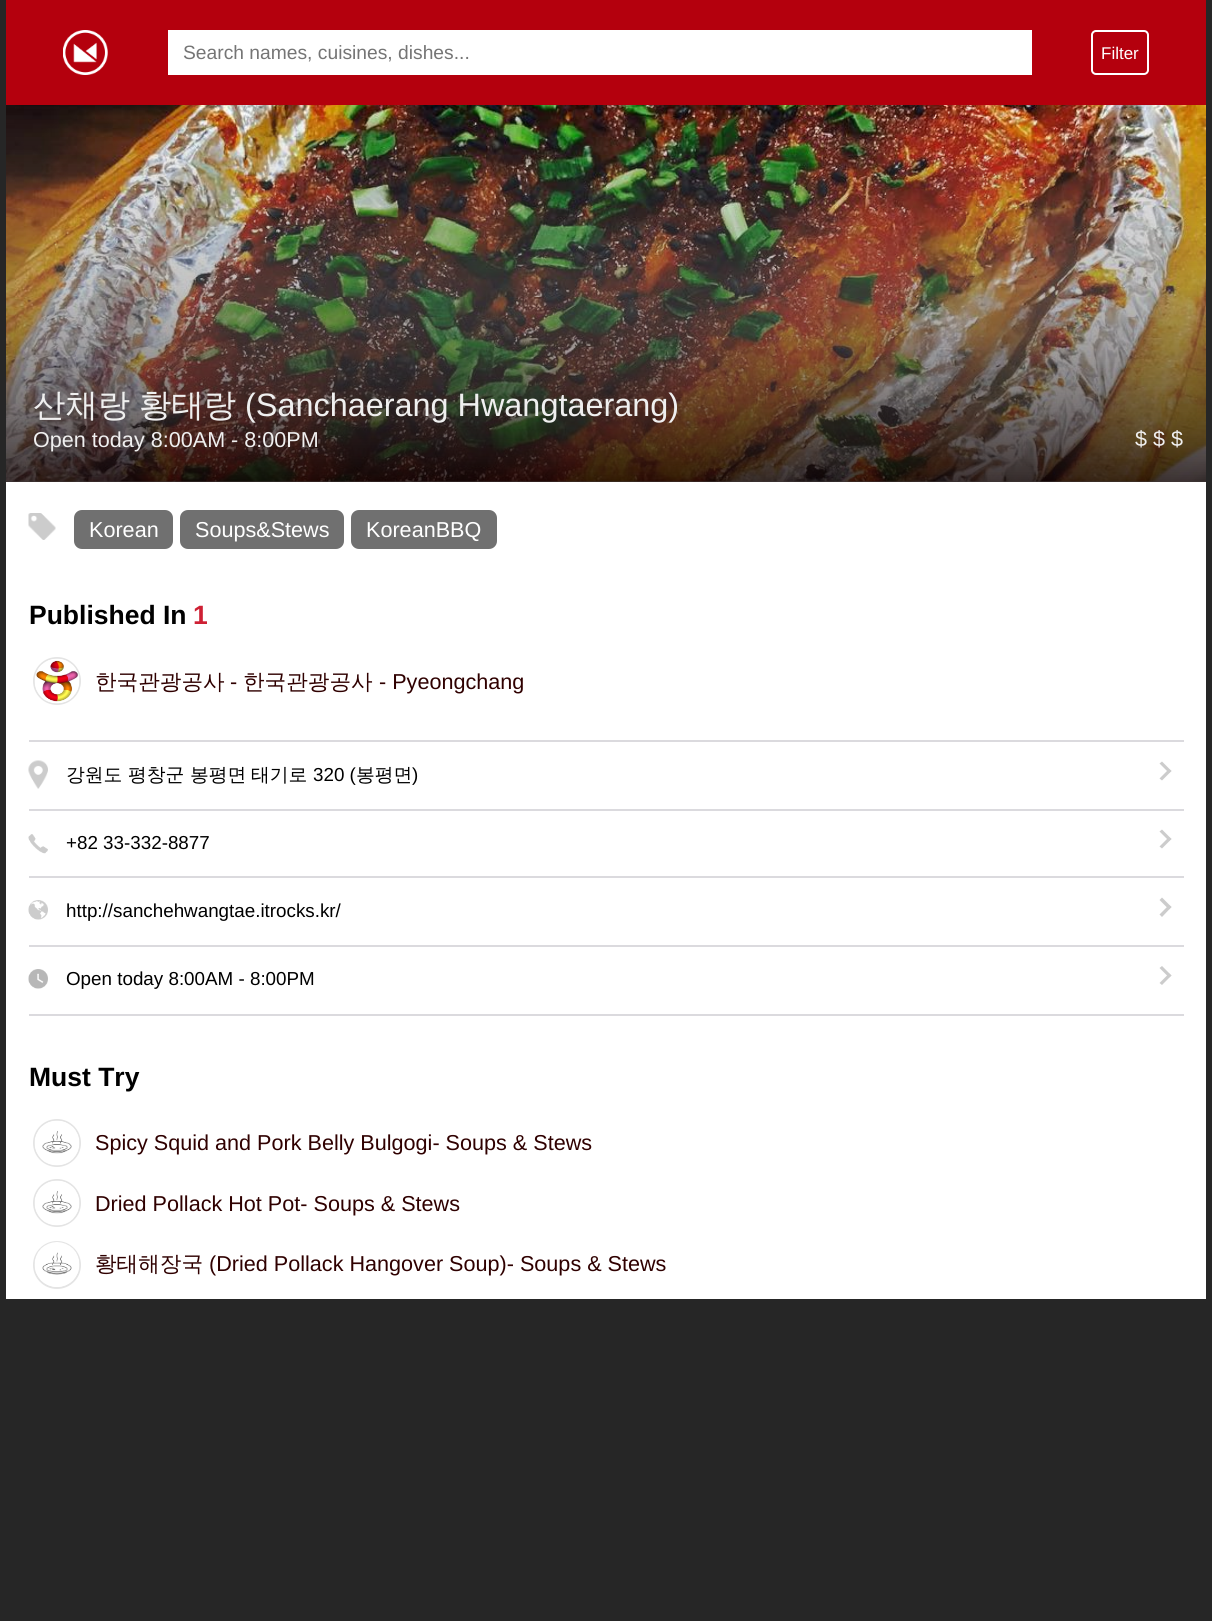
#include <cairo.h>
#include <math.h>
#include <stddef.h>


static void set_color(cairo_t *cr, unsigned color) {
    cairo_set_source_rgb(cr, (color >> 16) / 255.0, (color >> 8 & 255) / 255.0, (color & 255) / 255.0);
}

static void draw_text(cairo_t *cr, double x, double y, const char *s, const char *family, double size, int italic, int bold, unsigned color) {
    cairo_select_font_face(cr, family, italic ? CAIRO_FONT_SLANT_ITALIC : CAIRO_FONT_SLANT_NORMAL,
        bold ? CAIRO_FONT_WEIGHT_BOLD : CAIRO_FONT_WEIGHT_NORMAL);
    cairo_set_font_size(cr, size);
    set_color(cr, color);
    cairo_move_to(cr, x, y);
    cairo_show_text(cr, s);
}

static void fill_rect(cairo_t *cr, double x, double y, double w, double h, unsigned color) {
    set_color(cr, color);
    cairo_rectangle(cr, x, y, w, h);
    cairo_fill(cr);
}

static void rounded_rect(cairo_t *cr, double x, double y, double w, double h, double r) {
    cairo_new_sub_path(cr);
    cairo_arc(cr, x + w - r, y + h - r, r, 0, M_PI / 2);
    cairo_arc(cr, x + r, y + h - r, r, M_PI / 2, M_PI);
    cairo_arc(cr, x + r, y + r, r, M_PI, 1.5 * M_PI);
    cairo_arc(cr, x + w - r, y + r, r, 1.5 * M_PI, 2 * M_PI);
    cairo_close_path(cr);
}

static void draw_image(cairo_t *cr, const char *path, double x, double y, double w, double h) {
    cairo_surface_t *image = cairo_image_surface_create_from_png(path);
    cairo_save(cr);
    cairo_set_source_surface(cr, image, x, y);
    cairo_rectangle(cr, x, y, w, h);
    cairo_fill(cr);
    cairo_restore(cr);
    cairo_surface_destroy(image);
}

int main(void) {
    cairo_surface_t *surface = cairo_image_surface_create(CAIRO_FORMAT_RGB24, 1212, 1621);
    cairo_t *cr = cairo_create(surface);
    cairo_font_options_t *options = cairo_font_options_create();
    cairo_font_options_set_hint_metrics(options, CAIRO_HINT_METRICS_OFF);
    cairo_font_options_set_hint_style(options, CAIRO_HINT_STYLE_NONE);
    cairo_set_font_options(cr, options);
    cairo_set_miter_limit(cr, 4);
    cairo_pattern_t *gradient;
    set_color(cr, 0x262626);
    cairo_paint(cr);
    fill_rect(cr, 6, 481, 1200, 818, 0xFFFFFF);
    fill_rect(cr, 6, 0, 1200, 105, 0xB4000D);
    draw_image(cr, "assets/img1.png", 63, 30, 45, 45);
    fill_rect(cr, 168, 30, 864, 45, 0xFFFFFF);
    draw_text(cr, 183, 59, "Search names, cuisines, dishes...", "Liberation Sans", 19.25, 0, 0, 0x757575);
    rounded_rect(cr, 1092, 31, 56, 43, 4);
    set_color(cr, 0xFFFFFF);
    cairo_stroke(cr);
    draw_text(cr, 1101, 59, "Filter", "Liberation Sans", 17, 0, 0, 0xFFFFFF);
    draw_image(cr, "assets/img2.png", 6, 105, 1200, 377);
    gradient = cairo_pattern_create_linear(606, 105, 606, 482);
    cairo_pattern_add_color_stop_rgba(gradient, 0, 0.431, 0.427, 0.431, 0);
    cairo_pattern_add_color_stop_rgba(gradient, 0.47, 0.431, 0.427, 0.431, 0.38);
    cairo_pattern_add_color_stop_rgba(gradient, 1, 0.059, 0.012, 0.012, 0.8);
    cairo_set_source(cr, gradient);
    cairo_pattern_destroy(gradient);
    cairo_rectangle(cr, 6, 115, 1200, 367);
    cairo_fill(cr);
    draw_text(cr, 33, 416, "산채랑", "WenQuanYi Zen Hei Medium", 32.4, 0, 0, 0xEFEFEF);
    draw_text(cr, 139, 416, "황태랑", "WenQuanYi Zen Hei Medium", 32.4, 0, 0, 0xEFEFEF);
    draw_text(cr, 245, 416, "(Sanchaerang Hwangtaerang)", "Liberation Sans", 32.4, 0, 0, 0xEFEFEF);
    draw_text(cr, 33, 447, "Open today 8:00AM - 8:00PM", "Liberation Sans", 21.6, 0, 0, 0xEFEFEF);
    draw_text(cr, 1135, 446, "$ $ $", "Liberation Sans", 21.6, 0, 0, 0xEFEFEF);
    draw_image(cr, "assets/img3.png", 28, 513, 28, 27);
    set_color(cr, 0x707070);
    rounded_rect(cr, 74, 510, 99, 39, 8);
    cairo_fill(cr);
    draw_text(cr, 89, 537, "Korean", "Liberation Sans", 21.6, 0, 0, 0xFFFFFF);
    set_color(cr, 0x707070);
    rounded_rect(cr, 180, 510, 164, 39, 8);
    cairo_fill(cr);
    draw_text(cr, 195, 537, "Soups&Stews", "Liberation Sans", 21.6, 0, 0, 0xFFFFFF);
    set_color(cr, 0x707070);
    rounded_rect(cr, 351, 510, 146, 39, 8);
    cairo_fill(cr);
    draw_text(cr, 366, 537, "KoreanBBQ", "Liberation Sans", 21.6, 0, 0, 0xFFFFFF);
    draw_text(cr, 29, 624, "Published In", "Liberation Sans", 26.5, 0, 1, 0x000000);
    draw_text(cr, 193, 624, "1", "Liberation Sans", 26.5, 0, 1, 0xCE2034);
    cairo_new_path(cr);
    cairo_arc(cr, 57, 681, 23, 0, 2 * M_PI);
    set_color(cr, 0xE4E4E4);
    cairo_stroke(cr);
    draw_image(cr, "assets/img4.png", 34, 658, 46, 46);
    draw_text(cr, 95, 689, "한국관광공사", "WenQuanYi Zen Hei Medium", 21.6, 0, 0, 0x2F0000);
    draw_text(cr, 230, 689, "-", "Liberation Sans", 21.6, 0, 0, 0x2F0000);
    draw_text(cr, 243, 689, "한국관광공사", "WenQuanYi Zen Hei Medium", 21.6, 0, 0, 0x2F0000);
    draw_text(cr, 379, 689, "- Pyeongchang", "Liberation Sans", 21.6, 0, 0, 0x2F0000);
    draw_image(cr, "assets/img5.png", 28, 760, 20, 29);
    fill_rect(cr, 29, 740, 1155, 2, 0xDBDADE);
    fill_rect(cr, 29, 809, 1155, 2, 0xDBDADE);
    draw_text(cr, 66, 781, "강원도", "WenQuanYi Zen Hei Medium", 18.8, 0, 0, 0x000000);
    draw_text(cr, 128, 781, "평창군", "WenQuanYi Zen Hei Medium", 18.8, 0, 0, 0x000000);
    draw_text(cr, 190, 781, "봉평면", "WenQuanYi Zen Hei Medium", 18.8, 0, 0, 0x000000);
    draw_text(cr, 251, 781, "태기로", "WenQuanYi Zen Hei Medium", 18.8, 0, 0, 0x000000);
    draw_text(cr, 313, 781, "320 (", "Liberation Sans", 18.8, 0, 0, 0x000000);
    draw_text(cr, 356, 781, "봉평면", "WenQuanYi Zen Hei Medium", 18.8, 0, 0, 0x000000);
    draw_text(cr, 412, 781, ")", "Liberation Sans", 18.8, 0, 0, 0x000000);
    set_color(cr, 0xCCCCCC);
    cairo_new_path(cr);
    cairo_move_to(cr, 1162, 761.5);
    cairo_line_to(cr, 1171.5, 771);
    cairo_line_to(cr, 1169, 773);
    cairo_line_to(cr, 1159.5, 763.5);
    cairo_close_path(cr);
    cairo_fill(cr);
    cairo_new_path(cr);
    cairo_move_to(cr, 1169, 769);
    cairo_line_to(cr, 1171.5, 771);
    cairo_line_to(cr, 1162, 780.5);
    cairo_line_to(cr, 1159.5, 778.5);
    cairo_close_path(cr);
    cairo_fill(cr);
    draw_image(cr, "assets/img6.png", 28, 834, 20, 20);
    fill_rect(cr, 29, 876, 1155, 2, 0xDBDADE);
    draw_text(cr, 66, 849, "+82 33-332-8877", "Liberation Sans", 18.8, 0, 0, 0x000000);
    set_color(cr, 0xCCCCCC);
    cairo_new_path(cr);
    cairo_move_to(cr, 1162, 829.5);
    cairo_line_to(cr, 1171.5, 839);
    cairo_line_to(cr, 1169, 841);
    cairo_line_to(cr, 1159.5, 831.5);
    cairo_close_path(cr);
    cairo_fill(cr);
    cairo_new_path(cr);
    cairo_move_to(cr, 1169, 837);
    cairo_line_to(cr, 1171.5, 839);
    cairo_line_to(cr, 1162, 848.5);
    cairo_line_to(cr, 1159.5, 846.5);
    cairo_close_path(cr);
    cairo_fill(cr);
    draw_image(cr, "assets/img7.png", 28, 900, 20, 20);
    fill_rect(cr, 29, 945, 1155, 2, 0xDBDADE);
    draw_text(cr, 66, 917, "http://sanchehwangtae.itrocks.kr/", "Liberation Sans", 18.8, 0, 0, 0x000000);
    set_color(cr, 0xCCCCCC);
    cairo_new_path(cr);
    cairo_move_to(cr, 1162, 897.5);
    cairo_line_to(cr, 1171.5, 907);
    cairo_line_to(cr, 1169, 909.5);
    cairo_line_to(cr, 1159.5, 900);
    cairo_close_path(cr);
    cairo_fill(cr);
    cairo_new_path(cr);
    cairo_move_to(cr, 1169, 905);
    cairo_line_to(cr, 1171.5, 907);
    cairo_line_to(cr, 1162, 917);
    cairo_line_to(cr, 1159.5, 914.5);
    cairo_close_path(cr);
    cairo_fill(cr);
    draw_image(cr, "assets/img8.png", 28, 969, 20, 20);
    fill_rect(cr, 29, 1014, 1155, 2, 0xDBDADE);
    draw_text(cr, 66, 985, "Open today 8:00AM - 8:00PM", "Liberation Sans", 18.8, 0, 0, 0x000000);
    set_color(cr, 0xCCCCCC);
    cairo_new_path(cr);
    cairo_move_to(cr, 1162, 966);
    cairo_line_to(cr, 1171.5, 975.5);
    cairo_line_to(cr, 1169, 977.5);
    cairo_line_to(cr, 1159.5, 968);
    cairo_close_path(cr);
    cairo_fill(cr);
    cairo_new_path(cr);
    cairo_move_to(cr, 1169, 973.5);
    cairo_line_to(cr, 1171.5, 975.5);
    cairo_line_to(cr, 1162, 985);
    cairo_line_to(cr, 1159.5, 983);
    cairo_close_path(cr);
    cairo_fill(cr);
    draw_text(cr, 29, 1086, "Must Try", "Liberation Sans", 26.5, 0, 1, 0x000000);
    cairo_new_path(cr);
    cairo_arc(cr, 57, 1143, 23, 0, 2 * M_PI);
    set_color(cr, 0xE4E4E4);
    cairo_stroke(cr);
    draw_image(cr, "assets/img9.png", 34, 1120, 46, 46);
    draw_text(cr, 95, 1150, "Spicy Squid and Pork Belly Bulgogi- Soups & Stews", "Liberation Sans", 21.6, 0, 0, 0x2F0000);
    cairo_new_path(cr);
    cairo_arc(cr, 57, 1203, 23, 0, 2 * M_PI);
    set_color(cr, 0xE4E4E4);
    cairo_stroke(cr);
    draw_image(cr, "assets/img10.png", 34, 1180, 46, 46);
    draw_text(cr, 95, 1211, "Dried Pollack Hot Pot- Soups & Stews", "Liberation Sans", 21.6, 0, 0, 0x2F0000);
    cairo_new_path(cr);
    cairo_arc(cr, 57, 1265, 23, 0, 2 * M_PI);
    set_color(cr, 0xE4E4E4);
    cairo_stroke(cr);
    draw_image(cr, "assets/img11.png", 34, 1242, 46, 45);
    draw_text(cr, 95, 1271, "황태해장국", "WenQuanYi Zen Hei Medium", 21.6, 0, 0, 0x2F0000);
    draw_text(cr, 209, 1271, "(Dried Pollack Hangover Soup)- Soups & Stews", "Liberation Sans", 21.6, 0, 0, 0x2F0000);
    cairo_surface_write_to_png(surface, "output.png");
    cairo_font_options_destroy(options);
    cairo_destroy(cr);
    cairo_surface_destroy(surface);
    return 0;
}
